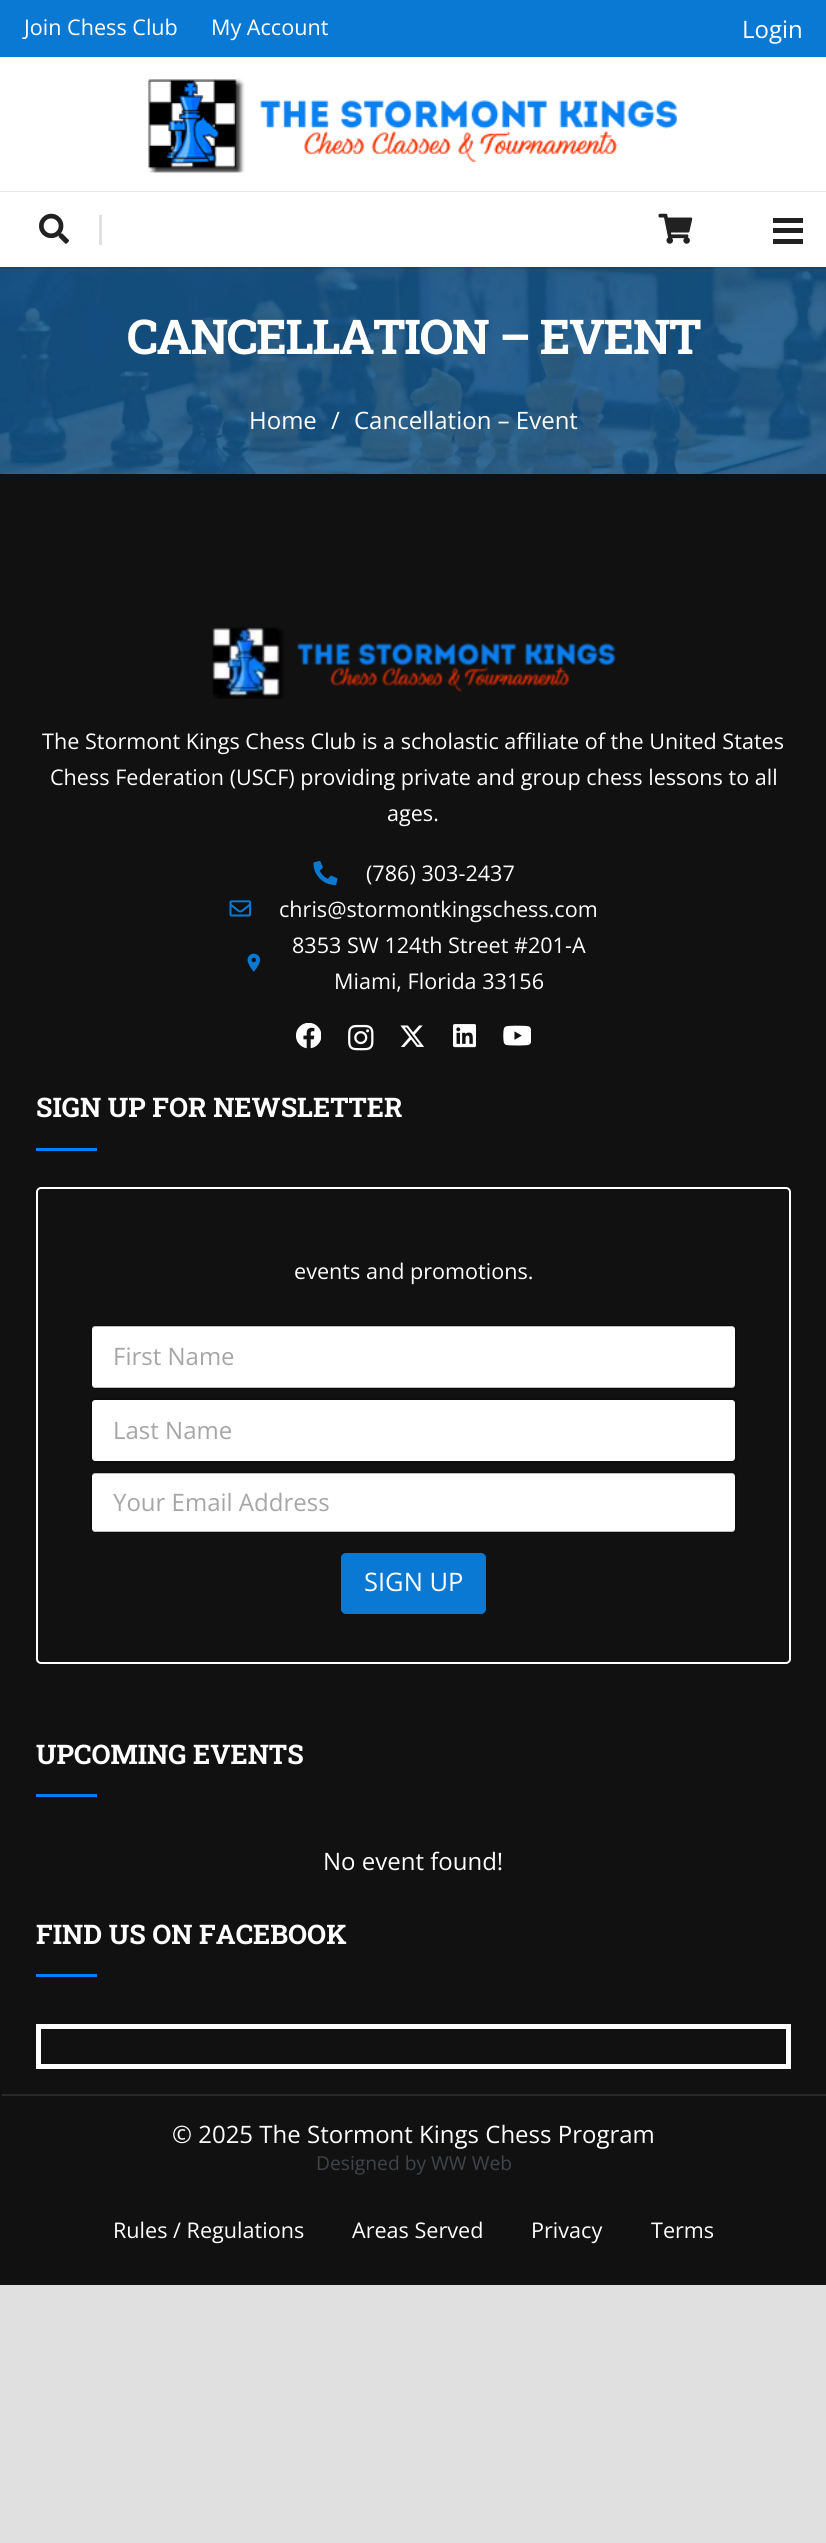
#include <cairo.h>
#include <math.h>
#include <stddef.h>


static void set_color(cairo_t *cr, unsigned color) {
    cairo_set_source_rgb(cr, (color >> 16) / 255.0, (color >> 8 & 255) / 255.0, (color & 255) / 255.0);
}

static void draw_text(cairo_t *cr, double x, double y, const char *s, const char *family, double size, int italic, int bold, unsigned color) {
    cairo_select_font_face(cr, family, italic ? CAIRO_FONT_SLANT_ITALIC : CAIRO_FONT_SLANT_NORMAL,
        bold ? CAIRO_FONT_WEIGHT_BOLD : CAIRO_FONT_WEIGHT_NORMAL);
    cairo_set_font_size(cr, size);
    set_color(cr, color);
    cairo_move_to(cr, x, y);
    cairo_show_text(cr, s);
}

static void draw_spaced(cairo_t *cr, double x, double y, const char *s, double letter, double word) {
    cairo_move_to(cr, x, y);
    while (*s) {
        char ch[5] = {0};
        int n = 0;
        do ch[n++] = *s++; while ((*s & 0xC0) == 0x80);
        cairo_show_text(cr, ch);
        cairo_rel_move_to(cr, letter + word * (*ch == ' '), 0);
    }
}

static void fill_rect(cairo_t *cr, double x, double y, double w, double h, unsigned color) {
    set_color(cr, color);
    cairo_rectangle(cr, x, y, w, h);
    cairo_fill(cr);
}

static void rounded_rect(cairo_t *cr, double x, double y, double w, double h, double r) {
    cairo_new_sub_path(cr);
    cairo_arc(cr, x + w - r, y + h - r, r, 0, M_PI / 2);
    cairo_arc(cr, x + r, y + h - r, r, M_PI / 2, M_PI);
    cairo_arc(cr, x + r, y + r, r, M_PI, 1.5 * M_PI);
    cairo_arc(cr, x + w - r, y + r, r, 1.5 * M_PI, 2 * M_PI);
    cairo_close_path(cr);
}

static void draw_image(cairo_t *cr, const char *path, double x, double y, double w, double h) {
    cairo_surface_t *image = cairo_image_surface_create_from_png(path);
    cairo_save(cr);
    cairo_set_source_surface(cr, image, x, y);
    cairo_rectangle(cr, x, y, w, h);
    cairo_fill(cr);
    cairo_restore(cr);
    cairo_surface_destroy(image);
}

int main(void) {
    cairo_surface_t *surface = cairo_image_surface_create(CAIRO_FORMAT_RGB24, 826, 2543);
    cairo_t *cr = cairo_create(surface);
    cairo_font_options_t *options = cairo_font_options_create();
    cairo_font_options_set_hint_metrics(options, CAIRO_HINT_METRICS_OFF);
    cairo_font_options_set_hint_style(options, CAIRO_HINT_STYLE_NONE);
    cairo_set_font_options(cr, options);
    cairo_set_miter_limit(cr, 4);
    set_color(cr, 0xE0E0E0);
    cairo_paint(cr);
    fill_rect(cr, 0, 57, 826, 134, 0xFFFFFF);
    fill_rect(cr, 0, 0, 826, 57, 0x0A79D3);
    draw_text(cr, 24, 35, "Join Chess Club", "Open Sans", 21.6, 0, 0, 0xFFFFFF);
    draw_text(cr, 211, 35, "My Account", "Open Sans", 21.6, 0, 0, 0xFFFFFF);
    draw_text(cr, 742, 38, "Login", "Open Sans", 24, 0, 0, 0xFFFFFF);
    fill_rect(cr, 0, 191, 826, 1, 0xEAE8E8);
    draw_image(cr, "assets/img1.png", 148, 78, 530, 95);
    draw_image(cr, "assets/img4.png", 0, 267, 826, 207);
    cairo_set_source_rgba(cr, 0, 0, 0, 0.08);
    cairo_new_path(cr);
    cairo_move_to(cr, 0, 267);
    cairo_line_to(cr, 0, 269);
    cairo_line_to(cr, 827, 269);
    cairo_line_to(cr, 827, 194);
    cairo_line_to(cr, 826, 194);
    cairo_line_to(cr, 826, 267);
    cairo_close_path(cr);
    cairo_fill(cr);
    fill_rect(cr, 0, 192, 826, 75, 0xFFFFFF);
    fill_rect(cr, 99, 215, 3, 30, 0xE0E0E0);
    draw_image(cr, "assets/img2.png", 39, 213, 30, 31);
    draw_image(cr, "assets/img3.png", 658, 213, 35, 31);
    fill_rect(cr, 773, 228, 30, 5, 0x212121);
    fill_rect(cr, 773, 218, 30, 5, 0x212121);
    fill_rect(cr, 773, 239, 30, 5, 0x212121);
    cairo_select_font_face(cr, "Roboto Slab", CAIRO_FONT_SLANT_NORMAL, CAIRO_FONT_WEIGHT_BOLD);
    cairo_set_font_size(cr, 48);
    set_color(cr, 0xFFFFFF);
    draw_spaced(cr, 127, 354, "CANCELLATION – EVENT", -1.4, 0);
    draw_text(cr, 249, 429, "Home", "Open Sans", 24, 0, 0, 0xFFFFFF);
    draw_text(cr, 331, 429, "/", "Open Sans", 24, 0, 0, 0xFFFFFF);
    draw_text(cr, 354, 429, "Cancellation – Event", "Open Sans", 24, 0, 0, 0xFFFFFF);
    fill_rect(cr, 0, 474, 826, 1811, 0x111111);
    draw_image(cr, "assets/img5.png", 212, 627, 404, 72);
    draw_text(cr, 42, 749, "The Stormont Kings Chess Club is a scholastic affiliate of the United States", "Open Sans", 21.6, 0, 0, 0xFFFFFF);
    draw_text(cr, 50, 785, "Chess Federation (USCF) providing private and group chess lessons to all", "Open Sans", 21.6, 0, 0, 0xFFFFFF);
    draw_text(cr, 387, 821, "ages.", "Open Sans", 21.6, 0, 0, 0xFFFFFF);
    draw_image(cr, "assets/img6.png", 313, 861, 25, 24);
    draw_text(cr, 366, 881, "(786) 303-2437", "Open Sans", 21.6, 0, 0, 0xFFFFFF);
    draw_image(cr, "assets/img7.png", 229, 900, 23, 17);
    draw_text(cr, 279, 917, "chris@stormontkingschess.com", "Open Sans", 21.6, 0, 0, 0xFFFFFF);
    draw_image(cr, "assets/img8.png", 247, 953, 14, 19);
    draw_text(cr, 292, 953, "8353 SW 124th Street #201-A", "Open Sans", 21.6, 0, 0, 0xFFFFFF);
    draw_text(cr, 334, 989, "Miami, Florida 33156", "Open Sans", 21.6, 0, 0, 0xFFFFFF);
    draw_image(cr, "assets/img9.png", 296, 1023, 25, 26);
    draw_image(cr, "assets/img10.png", 348, 1024, 26, 27);
    draw_image(cr, "assets/img11.png", 400, 1025, 24, 22);
    draw_image(cr, "assets/img12.png", 453, 1024, 23, 24);
    draw_image(cr, "assets/img13.png", 503, 1025, 28, 21);
    draw_text(cr, 36, 1117, "SIGN UP FOR NEWSLETTER", "Roboto Slab", 27, 0, 1, 0xFFFFFF);
    fill_rect(cr, 36, 1148, 61, 3, 0x007FFF);
    rounded_rect(cr, 37, 1188, 753, 475, 4);
    set_color(cr, 0xFFFFFF);
    cairo_stroke(cr);
    draw_text(cr, 294, 1279, "events and promotions.", "Open Sans", 21.6, 0, 0, 0xFFFFFF);
    rounded_rect(cr, 92, 1326, 643, 62, 3);
    cairo_fill(cr);
    rounded_rect(cr, 91, 1326, 645, 62, 4);
    cairo_set_source_rgba(cr, 0, 0, 0, 0.25);
    cairo_stroke(cr);
    draw_text(cr, 113, 1365, "First Name", "Open Sans", 24, 0, 0, 0xA6A6A6);
    set_color(cr, 0xFFFFFF);
    rounded_rect(cr, 92, 1400, 643, 61, 3);
    cairo_fill(cr);
    rounded_rect(cr, 91, 1399, 645, 63, 4);
    cairo_set_source_rgba(cr, 0, 0, 0, 0.25);
    cairo_stroke(cr);
    draw_text(cr, 113, 1439, "Last Name", "Open Sans", 24, 0, 0, 0xA6A6A6);
    set_color(cr, 0xFFFFFF);
    rounded_rect(cr, 92, 1473, 643, 59, 3);
    cairo_fill(cr);
    rounded_rect(cr, 91, 1473, 645, 59, 4);
    cairo_set_source_rgba(cr, 0, 0, 0, 0.25);
    cairo_stroke(cr);
    draw_text(cr, 113, 1511, "Your Email Address", "Open Sans", 24, 0, 0, 0xA6A6A6);
    set_color(cr, 0x0A79D3);
    rounded_rect(cr, 341, 1553, 145, 61, 5);
    cairo_fill(cr);
    draw_text(cr, 364, 1591, "SIGN UP", "Open Sans", 25.5, 0, 0, 0xFFFFFF);
    draw_text(cr, 36, 1764, "UPCOMING EVENTS", "Roboto Slab", 27, 0, 1, 0xFFFFFF);
    fill_rect(cr, 36, 1794, 61, 3, 0x007FFF);
    draw_text(cr, 323, 1870, "No event found!", "Open Sans", 24, 0, 0, 0xFFFFFF);
    draw_text(cr, 36, 1944, "FIND US ON FACEBOOK", "Roboto Slab", 27, 0, 1, 0xFFFFFF);
    fill_rect(cr, 36, 1974, 61, 3, 0x007FFF);
    cairo_rectangle(cr, 38.5, 2026.5, 750, 40);
    set_color(cr, 0xFFFFFF);
    cairo_set_line_width(cr, 5);
    cairo_stroke(cr);
    fill_rect(cr, 2, 2094, 824, 2, 0x292929);
    draw_text(cr, 172, 2143, "© 2025 The Stormont Kings Chess Program", "Open Sans", 24, 0, 0, 0xFFFFFF);
    draw_text(cr, 316, 2170, "Designed by WW Web", "Open Sans", 19.25, 0, 0, 0x3F444A);
    draw_text(cr, 113, 2238, "Rules / Regulations", "Open Sans", 21.6, 0, 0, 0xFFFFFF);
    draw_text(cr, 352, 2238, "Areas Served", "Open Sans", 21.6, 0, 0, 0xFFFFFF);
    draw_text(cr, 531, 2238, "Privacy", "Open Sans", 21.6, 0, 0, 0xFFFFFF);
    draw_text(cr, 651, 2238, "Terms", "Open Sans", 21.6, 0, 0, 0xFFFFFF);
    cairo_surface_write_to_png(surface, "output.png");
    cairo_font_options_destroy(options);
    cairo_destroy(cr);
    cairo_surface_destroy(surface);
    return 0;
}
